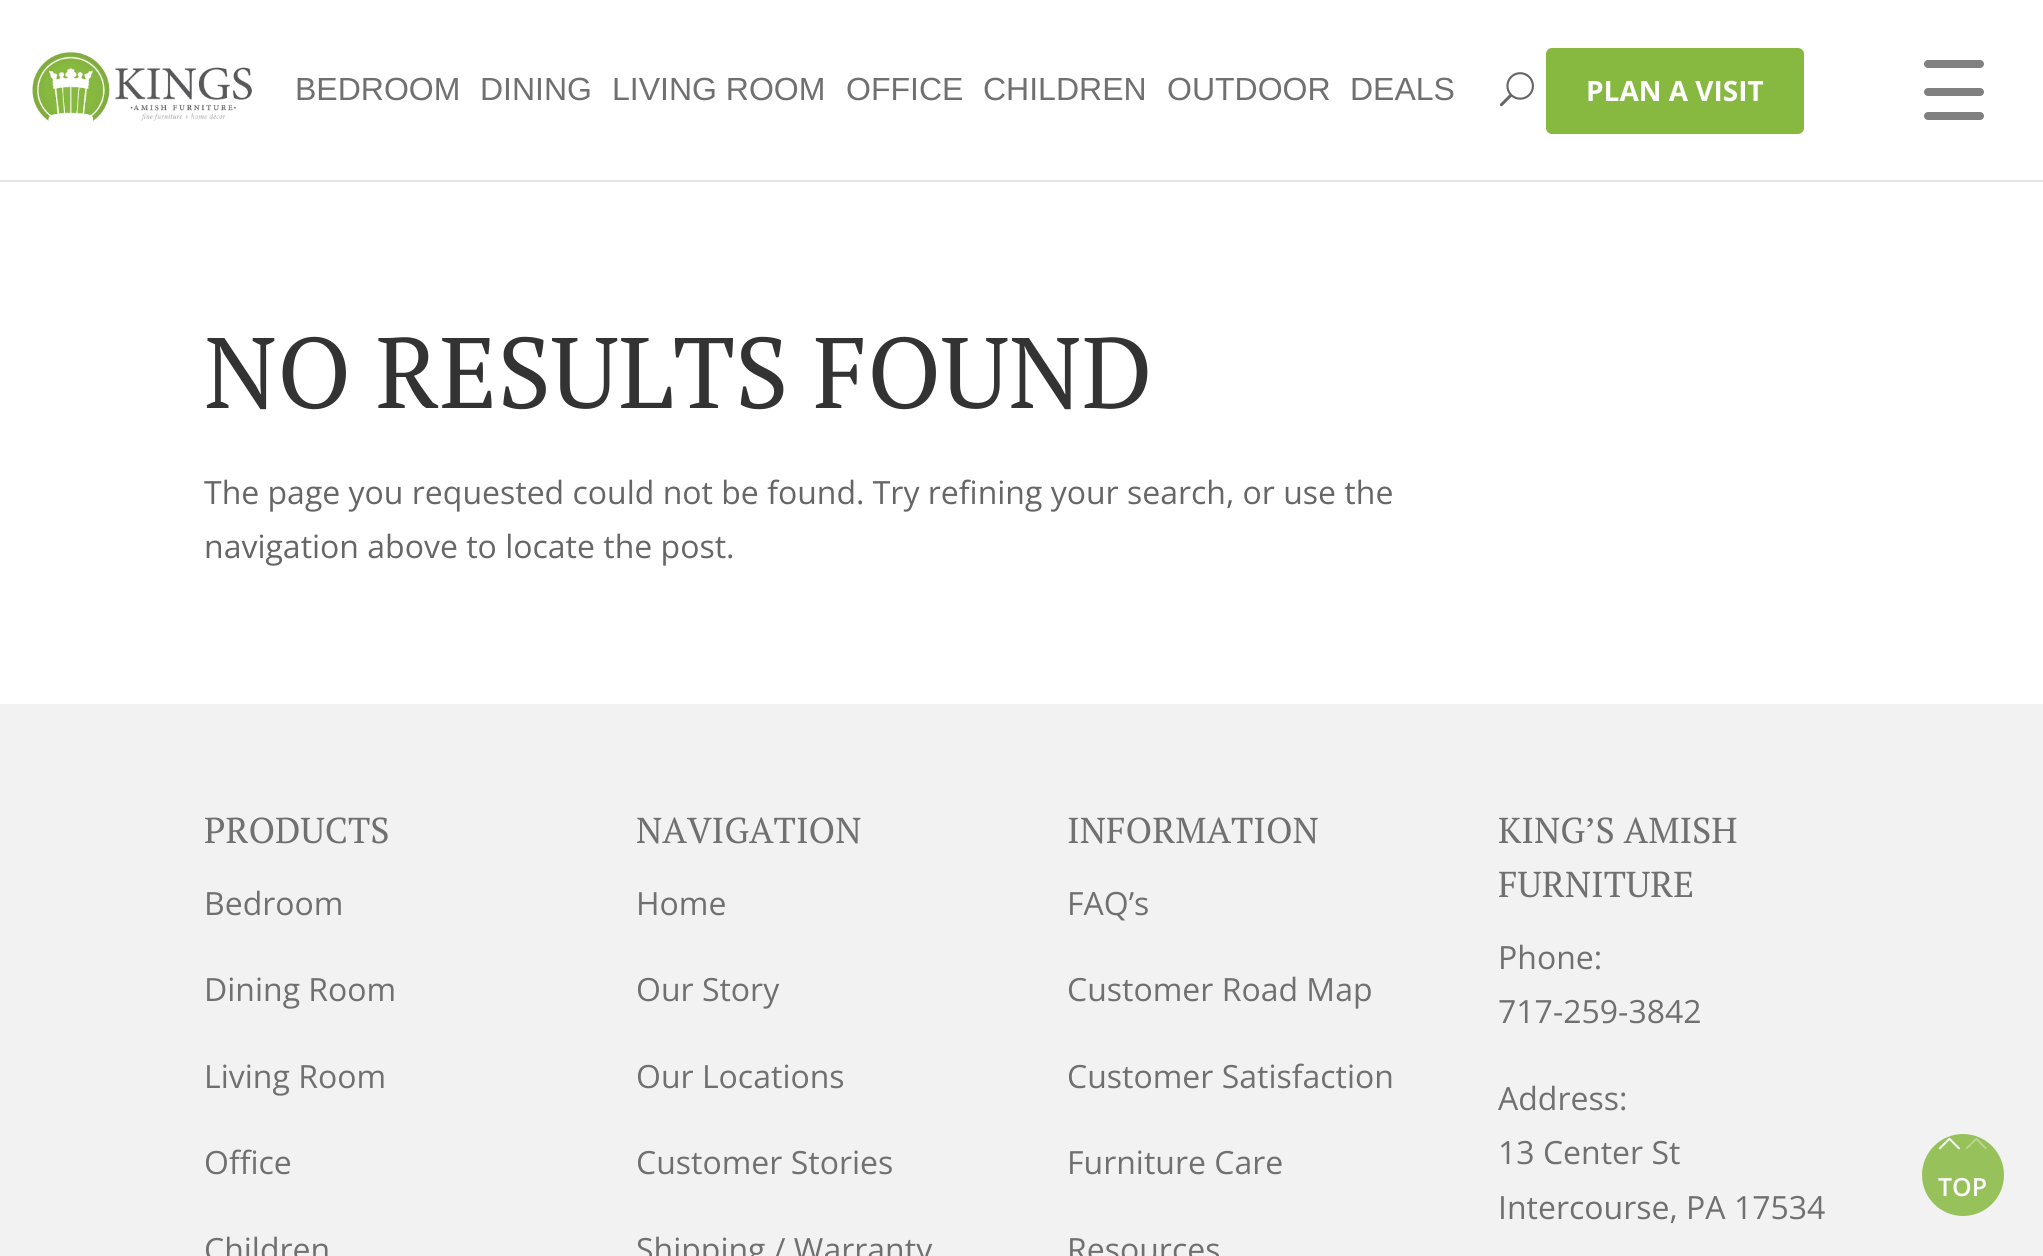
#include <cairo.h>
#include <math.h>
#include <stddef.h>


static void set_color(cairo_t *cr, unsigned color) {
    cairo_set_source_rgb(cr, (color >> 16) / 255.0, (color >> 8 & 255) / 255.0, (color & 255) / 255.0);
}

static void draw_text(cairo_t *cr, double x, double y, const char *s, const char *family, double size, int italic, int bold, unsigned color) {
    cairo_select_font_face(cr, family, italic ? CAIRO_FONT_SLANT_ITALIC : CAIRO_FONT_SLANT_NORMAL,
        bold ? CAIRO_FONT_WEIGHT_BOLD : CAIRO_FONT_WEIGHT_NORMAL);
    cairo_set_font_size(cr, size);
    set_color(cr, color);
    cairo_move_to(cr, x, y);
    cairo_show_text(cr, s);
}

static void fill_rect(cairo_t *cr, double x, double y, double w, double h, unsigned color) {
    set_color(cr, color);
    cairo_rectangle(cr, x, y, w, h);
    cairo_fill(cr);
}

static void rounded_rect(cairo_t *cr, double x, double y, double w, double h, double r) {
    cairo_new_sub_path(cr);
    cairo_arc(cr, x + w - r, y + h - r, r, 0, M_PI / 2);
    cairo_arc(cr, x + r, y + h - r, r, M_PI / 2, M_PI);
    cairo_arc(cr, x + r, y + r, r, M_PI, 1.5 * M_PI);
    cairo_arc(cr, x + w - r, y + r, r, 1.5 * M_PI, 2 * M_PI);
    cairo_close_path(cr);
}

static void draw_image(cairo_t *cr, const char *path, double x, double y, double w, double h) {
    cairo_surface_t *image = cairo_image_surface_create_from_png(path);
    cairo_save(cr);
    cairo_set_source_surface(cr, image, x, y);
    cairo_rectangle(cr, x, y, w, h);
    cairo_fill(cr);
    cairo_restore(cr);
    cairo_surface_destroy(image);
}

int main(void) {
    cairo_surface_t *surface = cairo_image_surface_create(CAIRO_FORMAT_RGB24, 2043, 1256);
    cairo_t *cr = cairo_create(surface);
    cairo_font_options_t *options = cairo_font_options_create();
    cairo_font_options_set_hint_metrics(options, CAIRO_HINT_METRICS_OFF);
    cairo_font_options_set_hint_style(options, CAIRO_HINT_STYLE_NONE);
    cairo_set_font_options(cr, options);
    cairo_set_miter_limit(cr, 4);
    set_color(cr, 0xFFFFFF);
    cairo_paint(cr);
    fill_rect(cr, 0, 180, 2043, 2, 0xE6E6E6);
    draw_image(cr, "assets/img1.png", 32, 52, 220, 69);
    draw_text(cr, 295, 100, "BEDROOM", "Liberation Sans", 32, 0, 0, 0x707070);
    draw_text(cr, 480, 100, "DINING", "Liberation Sans", 32, 0, 0, 0x707070);
    draw_text(cr, 612, 100, "LIVING ROOM", "Liberation Sans", 32, 0, 0, 0x707070);
    draw_text(cr, 846, 100, "OFFICE", "Liberation Sans", 32, 0, 0, 0x707070);
    draw_text(cr, 983, 100, "CHILDREN", "Liberation Sans", 32, 0, 0, 0x707070);
    draw_text(cr, 1167, 100, "OUTDOOR", "Liberation Sans", 32, 0, 0, 0x707070);
    draw_text(cr, 1350, 100, "DEALS", "Liberation Sans", 32, 0, 0, 0x707070);
    draw_image(cr, "assets/img2.png", 1499, 72, 35, 35);
    set_color(cr, 0x87B840);
    rounded_rect(cr, 1546, 48, 258, 86, 6);
    cairo_fill(cr);
    draw_text(cr, 1586, 101, "PLAN A VISIT", "Open Sans", 28, 0, 1, 0xFDFDFD);
    set_color(cr, 0x808080);
    rounded_rect(cr, 1924, 60, 60, 8, 4);
    cairo_fill(cr);
    rounded_rect(cr, 1924, 88, 60, 8, 4);
    cairo_fill(cr);
    rounded_rect(cr, 1924, 112, 60, 8, 4);
    cairo_fill(cr);
    draw_text(cr, 204, 408, "NO RESULTS FOUND", "PT Serif", 100, 0, 0, 0x333333);
    draw_text(cr, 204, 504, "The page you requested could not be found. Try refining your search, or use the", "Open Sans", 32, 0, 0, 0x666666);
    draw_text(cr, 204, 558, "navigation above to locate the post.", "Open Sans", 32, 0, 0, 0x666666);
    fill_rect(cr, 0, 704, 2043, 552, 0xF2F2F2);
    draw_text(cr, 204, 843, "PRODUCTS", "PT Serif", 36, 0, 0, 0x707070);
    draw_text(cr, 204, 915, "Bedroom", "Open Sans", 32, 0, 0, 0x707070);
    draw_text(cr, 204, 1001, "Dining Room", "Open Sans", 32, 0, 0, 0x707070);
    draw_text(cr, 204, 1088, "Living Room", "Open Sans", 32, 0, 0, 0x707070);
    draw_text(cr, 204, 1174, "Office", "Open Sans", 32, 0, 0, 0x707070);
    draw_text(cr, 204, 1261, "Children", "Open Sans", 32, 0, 0, 0x707070);
    draw_text(cr, 636, 843, "NAVIGATION", "PT Serif", 36, 0, 0, 0x707070);
    draw_text(cr, 636, 915, "Home", "Open Sans", 32, 0, 0, 0x707070);
    draw_text(cr, 636, 1001, "Our Story", "Open Sans", 32, 0, 0, 0x707070);
    draw_text(cr, 636, 1088, "Our Locations", "Open Sans", 32, 0, 0, 0x707070);
    draw_text(cr, 636, 1174, "Customer Stories", "Open Sans", 32, 0, 0, 0x707070);
    draw_text(cr, 636, 1261, "Shipping / Warranty", "Open Sans", 32, 0, 0, 0x707070);
    draw_text(cr, 1067, 843, "INFORMATION", "PT Serif", 36, 0, 0, 0x707070);
    draw_text(cr, 1067, 915, "FAQ’s", "Open Sans", 32, 0, 0, 0x707070);
    draw_text(cr, 1067, 1001, "Customer Road Map", "Open Sans", 32, 0, 0, 0x707070);
    draw_text(cr, 1067, 1088, "Customer Satisfaction", "Open Sans", 32, 0, 0, 0x707070);
    draw_text(cr, 1067, 1174, "Furniture Care", "Open Sans", 32, 0, 0, 0x707070);
    draw_text(cr, 1067, 1261, "Resources", "Open Sans", 32, 0, 0, 0x707070);
    draw_text(cr, 1498, 843, "KING’S AMISH", "PT Serif", 36, 0, 0, 0x707070);
    draw_text(cr, 1498, 897, "FURNITURE", "PT Serif", 36, 0, 0, 0x707070);
    draw_text(cr, 1498, 969, "Phone:", "Open Sans", 32, 0, 0, 0x707070);
    draw_text(cr, 1498, 1023, "717-259-3842", "Open Sans", 32, 0, 0, 0x707070);
    draw_text(cr, 1498, 1110, "Address:", "Open Sans", 32, 0, 0, 0x707070);
    draw_text(cr, 1498, 1164, "13 Center St", "Open Sans", 32, 0, 0, 0x707070);
    draw_text(cr, 1498, 1219, "Intercourse, PA 17534", "Open Sans", 32, 0, 0, 0x707070);
    set_color(cr, 0x97C15B);
    cairo_new_path(cr);
    cairo_arc(cr, 1963, 1175, 41, 0, 2 * M_PI);
    cairo_fill(cr);
    draw_image(cr, "assets/img3.png", 1938, 1137, 22, 13);
    draw_image(cr, "assets/img4.png", 1939, 1137, 48, 13);
    draw_text(cr, 1938, 1196, "TOP", "Open Sans SemiBold", 25, 0, 0, 0xFDFDFD);
    cairo_surface_write_to_png(surface, "output.png");
    cairo_font_options_destroy(options);
    cairo_destroy(cr);
    cairo_surface_destroy(surface);
    return 0;
}
